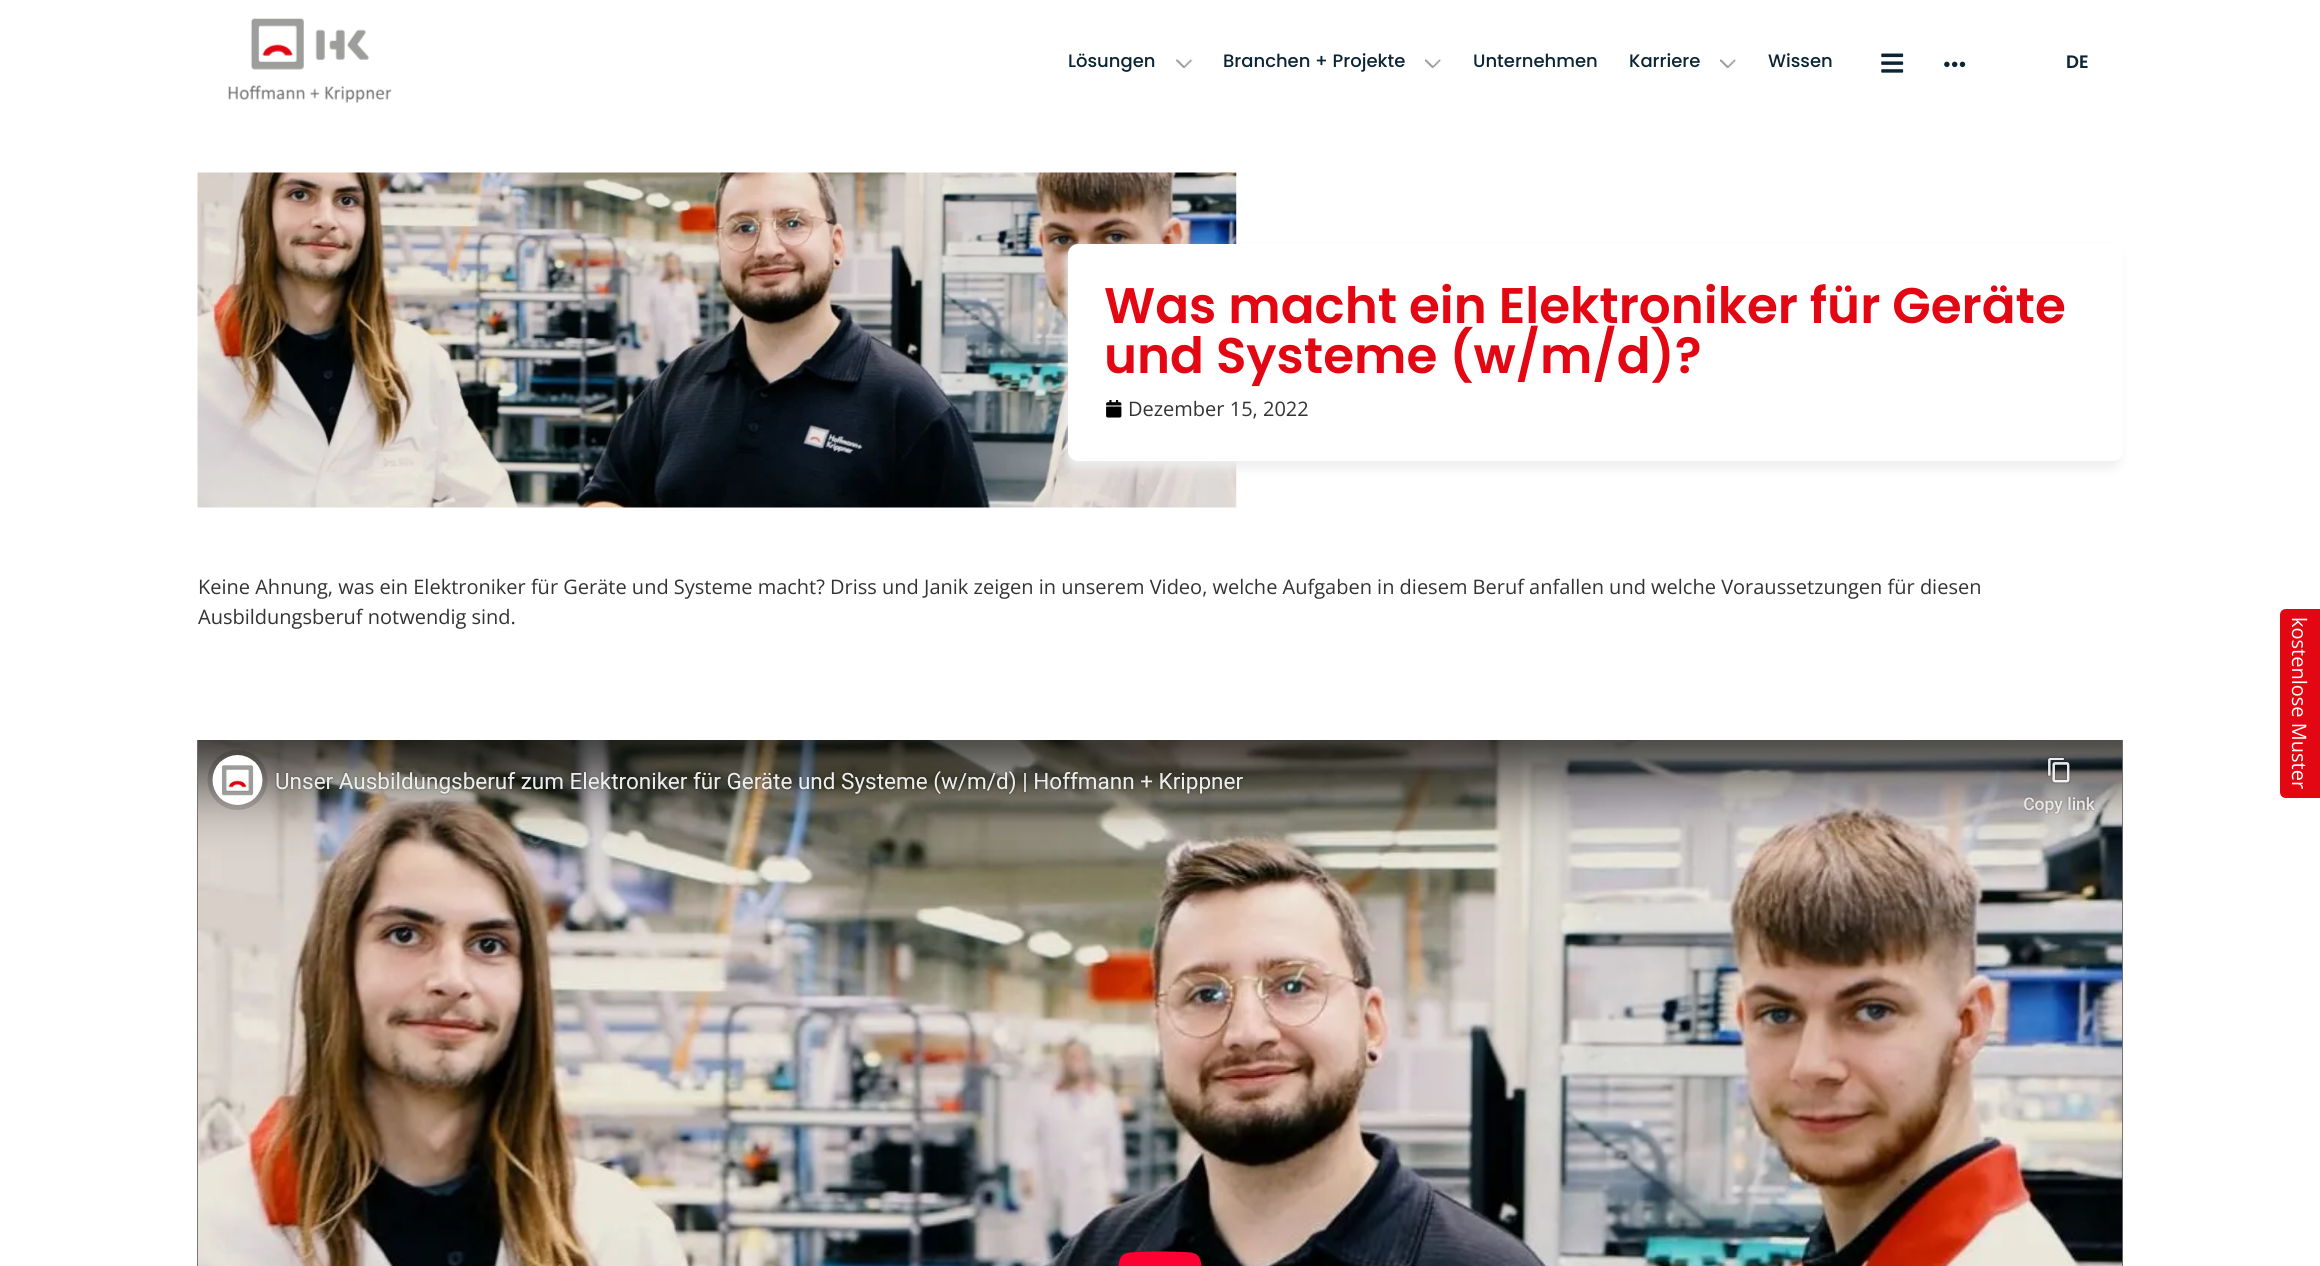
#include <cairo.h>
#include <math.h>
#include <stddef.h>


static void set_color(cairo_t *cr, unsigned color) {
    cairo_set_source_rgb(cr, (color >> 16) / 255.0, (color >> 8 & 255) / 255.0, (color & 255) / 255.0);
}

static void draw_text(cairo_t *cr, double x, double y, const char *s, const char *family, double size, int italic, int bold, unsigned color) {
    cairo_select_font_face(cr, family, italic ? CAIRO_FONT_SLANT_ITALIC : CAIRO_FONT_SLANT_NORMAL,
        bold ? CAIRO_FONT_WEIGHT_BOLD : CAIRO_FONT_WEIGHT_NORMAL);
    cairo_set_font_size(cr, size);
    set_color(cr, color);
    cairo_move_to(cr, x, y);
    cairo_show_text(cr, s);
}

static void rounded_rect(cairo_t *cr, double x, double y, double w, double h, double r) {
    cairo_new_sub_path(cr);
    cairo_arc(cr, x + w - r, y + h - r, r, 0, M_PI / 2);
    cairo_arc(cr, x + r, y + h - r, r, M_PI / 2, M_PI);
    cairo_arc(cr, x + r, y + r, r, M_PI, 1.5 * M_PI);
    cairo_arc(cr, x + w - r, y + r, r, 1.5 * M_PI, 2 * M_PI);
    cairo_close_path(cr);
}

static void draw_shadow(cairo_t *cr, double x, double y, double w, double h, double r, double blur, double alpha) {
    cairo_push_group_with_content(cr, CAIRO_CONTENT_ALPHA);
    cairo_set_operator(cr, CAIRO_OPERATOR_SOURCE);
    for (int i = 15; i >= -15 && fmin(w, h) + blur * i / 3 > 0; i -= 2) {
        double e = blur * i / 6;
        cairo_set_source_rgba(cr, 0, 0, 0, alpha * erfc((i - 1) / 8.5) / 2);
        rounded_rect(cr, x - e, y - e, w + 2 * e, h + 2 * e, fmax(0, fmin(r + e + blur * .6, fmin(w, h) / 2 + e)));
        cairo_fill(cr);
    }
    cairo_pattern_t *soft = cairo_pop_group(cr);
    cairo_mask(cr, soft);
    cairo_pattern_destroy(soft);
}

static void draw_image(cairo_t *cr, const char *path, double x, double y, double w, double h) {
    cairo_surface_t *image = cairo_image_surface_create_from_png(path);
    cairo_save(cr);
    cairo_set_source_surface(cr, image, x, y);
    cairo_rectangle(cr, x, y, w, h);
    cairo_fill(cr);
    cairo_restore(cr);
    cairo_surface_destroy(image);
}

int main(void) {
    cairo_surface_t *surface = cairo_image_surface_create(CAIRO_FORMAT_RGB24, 2320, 1266);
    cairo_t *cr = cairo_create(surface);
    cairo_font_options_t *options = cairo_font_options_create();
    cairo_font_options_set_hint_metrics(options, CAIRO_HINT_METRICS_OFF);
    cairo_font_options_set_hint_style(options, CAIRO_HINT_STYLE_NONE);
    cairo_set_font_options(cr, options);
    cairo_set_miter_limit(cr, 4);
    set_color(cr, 0xFFFFFF);
    cairo_paint(cr);
    draw_image(cr, "assets/img1.png", 228, 18, 164, 85);
    draw_text(cr, 1068, 67, "Lösungen", "Poppins Medium", 18, 0, 0, 0x0C2535);
    draw_image(cr, "assets/img2.png", 1176, 58, 17, 11);
    draw_text(cr, 1223, 67, "Branchen + Projekte", "Poppins Medium", 18, 0, 0, 0x0C2535);
    draw_image(cr, "assets/img3.png", 1425, 58, 17, 11);
    draw_text(cr, 1473, 67, "Unternehmen", "Poppins Medium", 18, 0, 0, 0x0C2535);
    draw_text(cr, 1629, 67, "Karriere", "Poppins Medium", 18, 0, 0, 0x0C2535);
    draw_image(cr, "assets/img4.png", 1720, 58, 17, 11);
    draw_text(cr, 1768, 67, "Wissen", "Poppins Medium", 18, 0, 0, 0x0C2535);
    draw_image(cr, "assets/img5.png", 1881, 53, 23, 20);
    draw_image(cr, "assets/img6.png", 1944, 61, 22, 7);
    draw_text(cr, 2066, 68, "DE", "Poppins SemiBold", 18, 0, 0, 0x0C2535);
    draw_image(cr, "assets/img7.png", 197, 172, 1040, 336);
    set_color(cr, 0xEDEDED);
    draw_shadow(cr, 1065, 250, 1055, 218, 10, 5, 1);
    set_color(cr, 0xFFFFFF);
    rounded_rect(cr, 1068, 244, 1055, 217, 10);
    cairo_fill(cr);
    draw_text(cr, 1104, 323, "Was macht ein Elektroniker für Geräte", "Poppins SemiBold", 50, 0, 0, 0xE30613);
    draw_text(cr, 1104, 373, "und Systeme (w/m/d)?", "Poppins SemiBold", 50, 0, 0, 0xE30613);
    draw_image(cr, "assets/img8.png", 1106, 400, 16, 18);
    draw_text(cr, 1128, 416, "Dezember 15, 2022", "Open Sans", 20, 0, 0, 0x333333);
    draw_text(cr, 198, 594, "Keine Ahnung, was ein Elektroniker für Geräte und Systeme macht? Driss und Janik zeigen in unserem Video, welche Aufgaben in diesem Beruf anfallen und welche Voraussetzungen für diesen", "Open Sans", 20, 0, 0, 0x333333);
    draw_text(cr, 198, 624, "Ausbildungsberuf notwendig sind.", "Open Sans", 20, 0, 0, 0x333333);
    draw_image(cr, "assets/img9.png", 197, 740, 1926, 526);
    draw_image(cr, "assets/img10.png", 197, 740, 1926, 526);
    set_color(cr, 0xE30613);
    cairo_new_path(cr);
    cairo_move_to(cr, 2286, 609);
    cairo_line_to(cr, 2320, 609);
    cairo_line_to(cr, 2320, 798);
    cairo_line_to(cr, 2286, 798);
    cairo_curve_to(cr, 2282.5, 798, 2280, 795.5, 2280, 792);
    cairo_line_to(cr, 2280, 615);
    cairo_curve_to(cr, 2280, 611.5, 2282.5, 609, 2286, 609);
    cairo_close_path(cr);
    cairo_fill(cr);
    cairo_save(cr);
    cairo_translate(cr, 2292, 617);
    cairo_rotate(cr, 90 * M_PI / 180);
    draw_text(cr, 0, 0, "kostenlose Muster", "Open Sans", 20, 0, 0, 0xFFFFFF);
    cairo_restore(cr);
    cairo_surface_write_to_png(surface, "output.png");
    cairo_font_options_destroy(options);
    cairo_destroy(cr);
    cairo_surface_destroy(surface);
    return 0;
}
